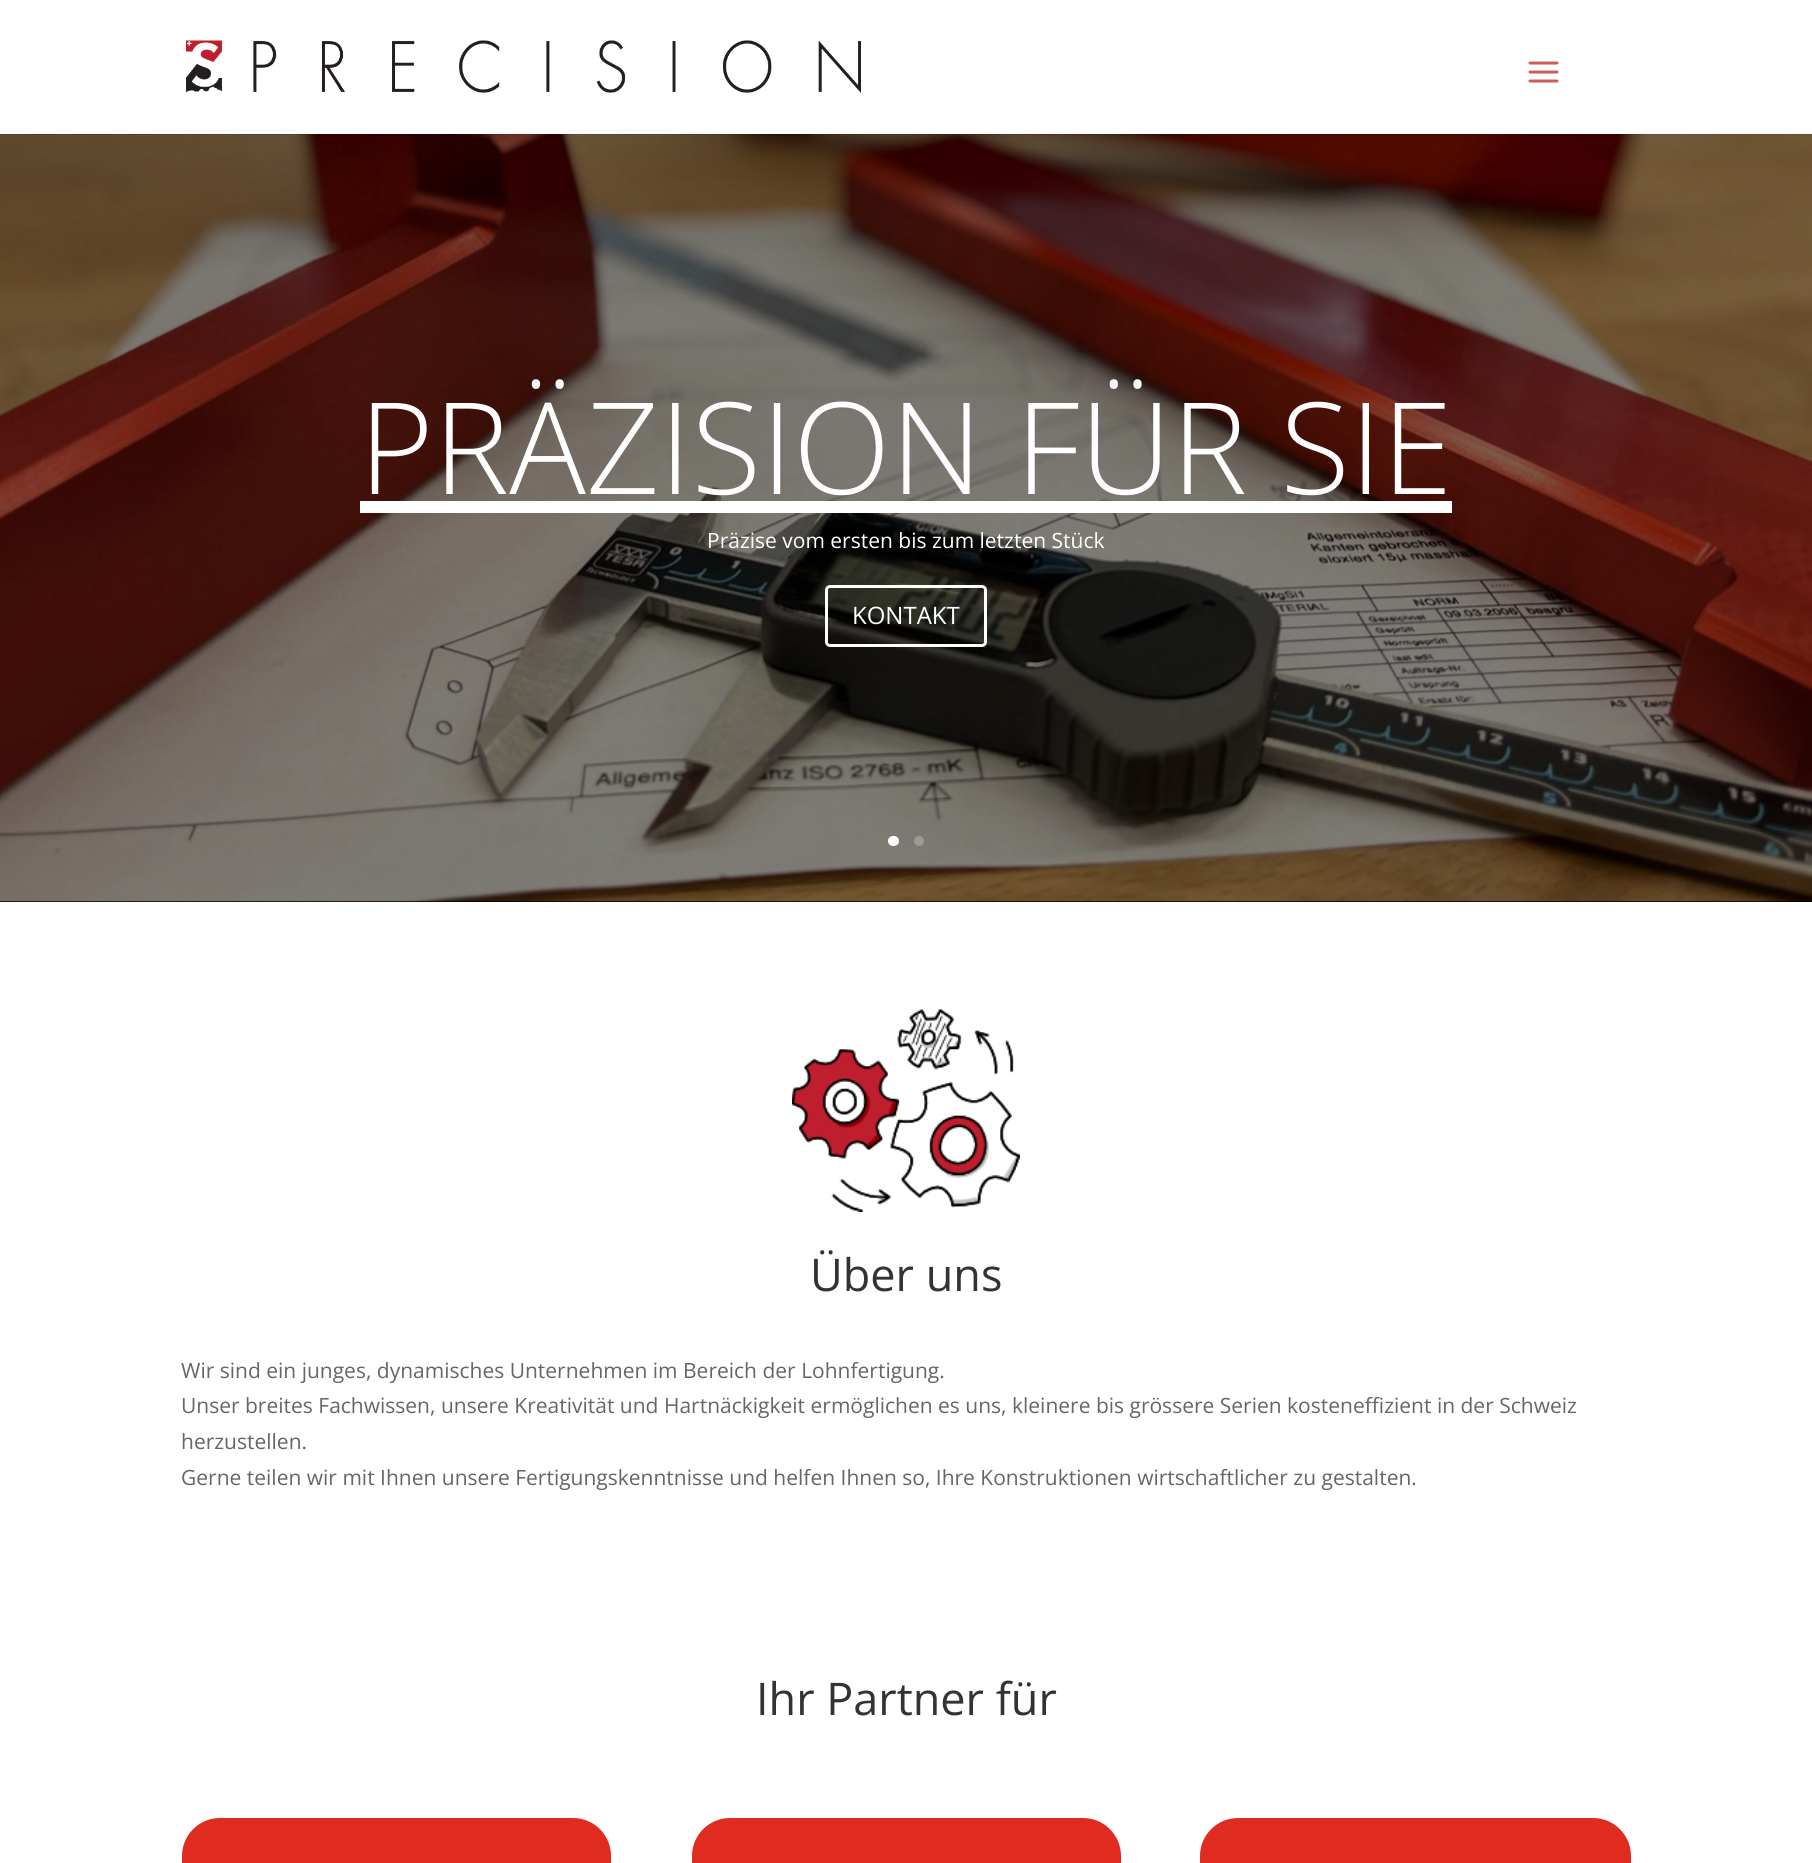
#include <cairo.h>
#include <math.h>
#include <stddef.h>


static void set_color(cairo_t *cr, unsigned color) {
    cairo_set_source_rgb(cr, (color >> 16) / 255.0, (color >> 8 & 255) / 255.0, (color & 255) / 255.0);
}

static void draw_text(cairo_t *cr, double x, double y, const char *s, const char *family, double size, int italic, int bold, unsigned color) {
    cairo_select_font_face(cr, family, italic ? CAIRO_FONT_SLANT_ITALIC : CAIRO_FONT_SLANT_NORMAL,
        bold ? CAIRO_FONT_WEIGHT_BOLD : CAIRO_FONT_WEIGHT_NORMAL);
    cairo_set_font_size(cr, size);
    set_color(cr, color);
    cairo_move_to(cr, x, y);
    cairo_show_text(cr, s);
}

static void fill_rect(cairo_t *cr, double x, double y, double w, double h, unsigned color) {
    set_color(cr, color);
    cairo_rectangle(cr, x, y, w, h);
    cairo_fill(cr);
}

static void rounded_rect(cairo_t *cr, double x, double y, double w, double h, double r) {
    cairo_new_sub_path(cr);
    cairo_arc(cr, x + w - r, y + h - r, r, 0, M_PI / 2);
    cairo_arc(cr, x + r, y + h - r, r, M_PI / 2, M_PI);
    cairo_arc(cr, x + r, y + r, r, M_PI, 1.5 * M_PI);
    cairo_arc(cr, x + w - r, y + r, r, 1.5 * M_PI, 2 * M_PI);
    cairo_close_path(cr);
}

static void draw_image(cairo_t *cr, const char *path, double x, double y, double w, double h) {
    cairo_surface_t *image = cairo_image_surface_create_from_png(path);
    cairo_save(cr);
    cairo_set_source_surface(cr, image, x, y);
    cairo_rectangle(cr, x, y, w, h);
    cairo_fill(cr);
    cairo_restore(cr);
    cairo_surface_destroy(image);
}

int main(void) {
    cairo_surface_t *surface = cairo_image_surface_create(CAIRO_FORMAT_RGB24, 1812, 1863);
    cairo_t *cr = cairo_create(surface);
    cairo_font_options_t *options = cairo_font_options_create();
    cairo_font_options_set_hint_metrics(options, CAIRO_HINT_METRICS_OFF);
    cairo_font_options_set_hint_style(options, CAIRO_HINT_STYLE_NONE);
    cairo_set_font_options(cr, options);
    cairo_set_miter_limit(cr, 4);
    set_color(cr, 0xFFFFFF);
    cairo_paint(cr);
    fill_rect(cr, 0, 901, 1812, 1, 0x000000);
    draw_image(cr, "assets/img3.png", 0, 134, 1812, 768);
    cairo_set_source_rgba(cr, 0, 0, 0, 0.1);
    cairo_rectangle(cr, 0, 134, 1812, 1);
    cairo_fill(cr);
    draw_image(cr, "assets/img1.png", 186, 40, 675, 53);
    draw_image(cr, "assets/img2.png", 1528, 61, 31, 22);
    draw_text(cr, 359, 494, "PRÄZISION FÜR SIE", "Open Sans Light", 127.5, 0, 0, 0xFFFFFF);
    fill_rect(cr, 360, 501, 1092, 12, 0xFFFFFF);
    draw_text(cr, 707, 548, "Präzise vom ersten bis zum letzten Stück", "Open Sans", 21, 0, 0, 0xFFFFFF);
    rounded_rect(cr, 826.5, 586.5, 159, 59, 3.5);
    cairo_set_line_width(cr, 3);
    cairo_stroke(cr);
    draw_text(cr, 852, 624, "KONTAKT", "Open Sans", 24, 0, 0, 0xFFFFFF);
    rounded_rect(cr, 888, 836, 11, 10, 5);
    cairo_fill(cr);
    set_color(cr, 0x9C9A95);
    cairo_arc(cr, 919, 841, 5, 0, 2 * M_PI);
    cairo_fill(cr);
    draw_image(cr, "assets/img4.png", 792, 1009, 228, 203);
    draw_text(cr, 810, 1291, "Über uns", "Open Sans", 45, 0, 0, 0x333333);
    draw_text(cr, 181, 1378, "Wir sind ein junges, dynamisches Unternehmen im Bereich der Lohnfertigung.", "Open Sans", 21, 0, 0, 0x666666);
    draw_text(cr, 181, 1413, "Unser breites Fachwissen, unsere Kreativität und Hartnäckigkeit ermöglichen es uns, kleinere bis grössere Serien kosteneffizient in der Schweiz", "Open Sans", 21, 0, 0, 0x666666);
    draw_text(cr, 181, 1449, "herzustellen.", "Open Sans", 21, 0, 0, 0x666666);
    draw_text(cr, 181, 1485, "Gerne teilen wir mit Ihnen unsere Fertigungskenntnisse und helfen Ihnen so, Ihre Konstruktionen wirtschaftlicher zu gestalten.", "Open Sans", 21, 0, 0, 0x666666);
    draw_text(cr, 756, 1715, "Ihr Partner für", "Open Sans", 45, 0, 0, 0x333333);
    set_color(cr, 0xE02B20);
    rounded_rect(cr, 182, 1818, 429, 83, 38);
    cairo_fill(cr);
    rounded_rect(cr, 692, 1818, 429, 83, 38);
    cairo_fill(cr);
    rounded_rect(cr, 1200, 1818, 431, 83, 38);
    cairo_fill(cr);
    cairo_surface_write_to_png(surface, "output.png");
    cairo_font_options_destroy(options);
    cairo_destroy(cr);
    cairo_surface_destroy(surface);
    return 0;
}
